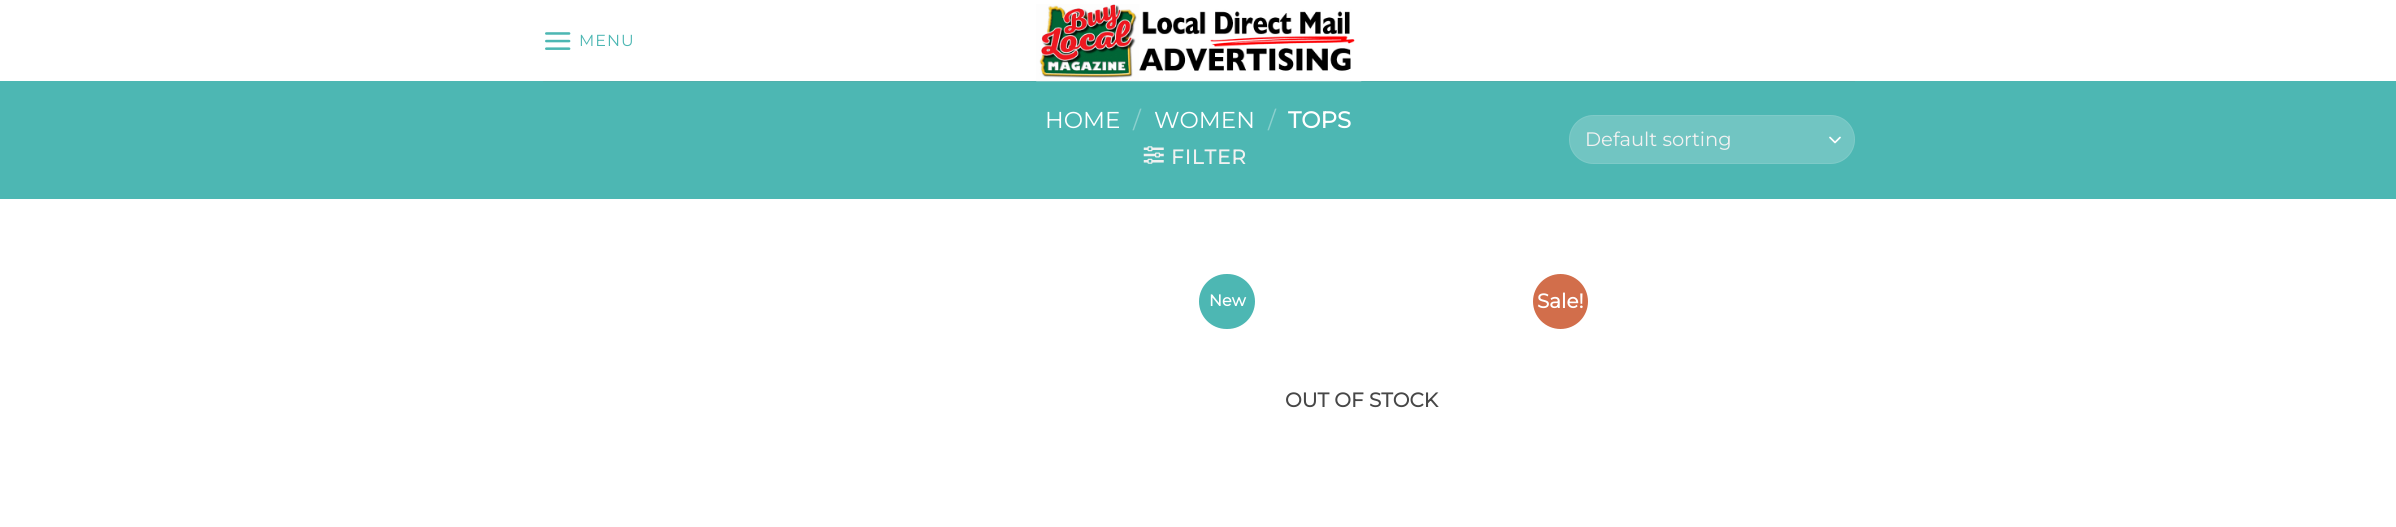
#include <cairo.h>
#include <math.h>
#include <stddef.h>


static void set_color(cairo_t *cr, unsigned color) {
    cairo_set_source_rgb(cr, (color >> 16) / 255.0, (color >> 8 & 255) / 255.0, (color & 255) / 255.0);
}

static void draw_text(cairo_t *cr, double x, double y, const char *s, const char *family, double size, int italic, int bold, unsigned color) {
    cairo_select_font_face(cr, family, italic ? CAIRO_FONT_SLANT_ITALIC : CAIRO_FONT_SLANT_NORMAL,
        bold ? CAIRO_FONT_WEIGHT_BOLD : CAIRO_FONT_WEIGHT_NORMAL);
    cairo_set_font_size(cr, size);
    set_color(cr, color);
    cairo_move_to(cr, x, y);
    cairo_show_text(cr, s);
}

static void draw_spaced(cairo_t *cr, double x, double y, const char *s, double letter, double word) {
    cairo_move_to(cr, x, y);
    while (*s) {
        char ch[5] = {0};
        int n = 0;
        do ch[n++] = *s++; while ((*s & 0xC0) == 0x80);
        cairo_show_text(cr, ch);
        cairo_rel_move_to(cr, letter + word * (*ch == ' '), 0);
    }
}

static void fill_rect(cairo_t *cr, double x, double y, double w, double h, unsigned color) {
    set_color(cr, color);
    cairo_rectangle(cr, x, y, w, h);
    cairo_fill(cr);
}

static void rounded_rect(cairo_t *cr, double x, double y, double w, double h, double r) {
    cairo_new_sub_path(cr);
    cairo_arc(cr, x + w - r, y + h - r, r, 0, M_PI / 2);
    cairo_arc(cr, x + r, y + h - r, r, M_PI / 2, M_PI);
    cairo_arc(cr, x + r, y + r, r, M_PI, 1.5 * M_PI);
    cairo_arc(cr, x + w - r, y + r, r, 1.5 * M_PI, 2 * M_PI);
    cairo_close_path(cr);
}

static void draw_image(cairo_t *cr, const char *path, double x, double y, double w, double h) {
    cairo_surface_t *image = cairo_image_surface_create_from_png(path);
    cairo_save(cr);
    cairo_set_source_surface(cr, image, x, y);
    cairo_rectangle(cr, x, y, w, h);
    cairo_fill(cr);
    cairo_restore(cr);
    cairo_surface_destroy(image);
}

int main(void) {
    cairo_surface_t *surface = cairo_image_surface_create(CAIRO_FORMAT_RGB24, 2396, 527);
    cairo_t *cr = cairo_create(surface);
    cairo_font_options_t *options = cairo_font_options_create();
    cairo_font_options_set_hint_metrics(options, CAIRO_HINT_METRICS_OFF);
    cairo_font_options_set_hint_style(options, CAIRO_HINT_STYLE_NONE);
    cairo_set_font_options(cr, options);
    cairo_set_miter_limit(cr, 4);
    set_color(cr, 0xFFFFFF);
    cairo_paint(cr);
    draw_image(cr, "assets/img1.png", 545, 32, 26, 18);
    cairo_select_font_face(cr, "Montserrat Thin", CAIRO_FONT_SLANT_NORMAL, CAIRO_FONT_WEIGHT_NORMAL);
    cairo_set_font_size(cr, 16);
    set_color(cr, 0x4DB7B3);
    draw_spaced(cr, 579, 46, "MENU", 1, 0);
    fill_rect(cr, 0, 81, 2396, 118, 0x4DB7B3);
    draw_image(cr, "assets/img2.png", 1036, 4, 326, 78);
    cairo_set_source_rgba(cr, 0.467, 0.467, 0.467, 0.1);
    cairo_rectangle(cr, 543, 81, 1312, 1);
    cairo_fill(cr);
    draw_text(cr, 1045, 128, "HOME", "Montserrat Thin", 23, 0, 0, 0xFFFFFF);
    draw_text(cr, 1133, 128, "/", "Montserrat Thin", 23, 0, 0, 0x8BD0CE);
    draw_text(cr, 1154, 128, "WOMEN", "Montserrat Thin", 23, 0, 0, 0xFFFFFF);
    draw_text(cr, 1268, 128, "/", "Montserrat Thin", 23, 0, 0, 0x8BD0CE);
    draw_text(cr, 1288, 128, "TOPS", "Montserrat", 23, 0, 1, 0xFFFFFF);
    draw_image(cr, "assets/img3.png", 1143, 146, 21, 18);
    cairo_set_font_size(cr, 20);
    set_color(cr, 0xF1F1F1);
    draw_spaced(cr, 1171, 164, "FILTER", 1, 0);
    set_color(cr, 0x71C5C2);
    rounded_rect(cr, 1569, 115, 286, 49, 24.5);
    cairo_fill(cr);
    cairo_new_path(cr);
    cairo_move_to(cr, 1830, 137.5);
    cairo_line_to(cr, 1835, 142.5);
    cairo_line_to(cr, 1840, 137.5);
    set_color(cr, 0xFFFFFF);
    cairo_set_line_width(cr, 1.7);
    cairo_set_line_cap(cr, CAIRO_LINE_CAP_ROUND);
    cairo_set_line_join(cr, CAIRO_LINE_JOIN_ROUND);
    cairo_stroke(cr);
    rounded_rect(cr, 1569.5, 115.5, 285, 48, 24);
    cairo_set_source_rgba(cr, 1, 1, 1, 0.09);
    cairo_set_line_width(cr, 1);
    cairo_set_line_cap(cr, CAIRO_LINE_CAP_BUTT);
    cairo_set_line_join(cr, CAIRO_LINE_JOIN_MITER);
    cairo_stroke(cr);
    draw_text(cr, 1585, 146, "Default sorting", "Montserrat Thin", 19.5, 0, 0, 0xF1F1F1);
    set_color(cr, 0x4DB7B3);
    rounded_rect(cr, 1199, 274, 56, 55, 27.5);
    cairo_fill(cr);
    draw_text(cr, 1209, 306, "New", "Montserrat", 16, 0, 1, 0xFFFFFF);
    draw_text(cr, 1285, 407, "OUT OF STOCK", "Montserrat", 20, 0, 1, 0x474747);
    set_color(cr, 0xD26E4B);
    cairo_new_path(cr);
    cairo_arc(cr, 1560.5, 301.5, 27.5, 0, 2 * M_PI);
    cairo_fill(cr);
    draw_text(cr, 1537, 308, "Sale!", "Montserrat", 20, 0, 1, 0xFFFFFF);
    cairo_surface_write_to_png(surface, "output.png");
    cairo_font_options_destroy(options);
    cairo_destroy(cr);
    cairo_surface_destroy(surface);
    return 0;
}
